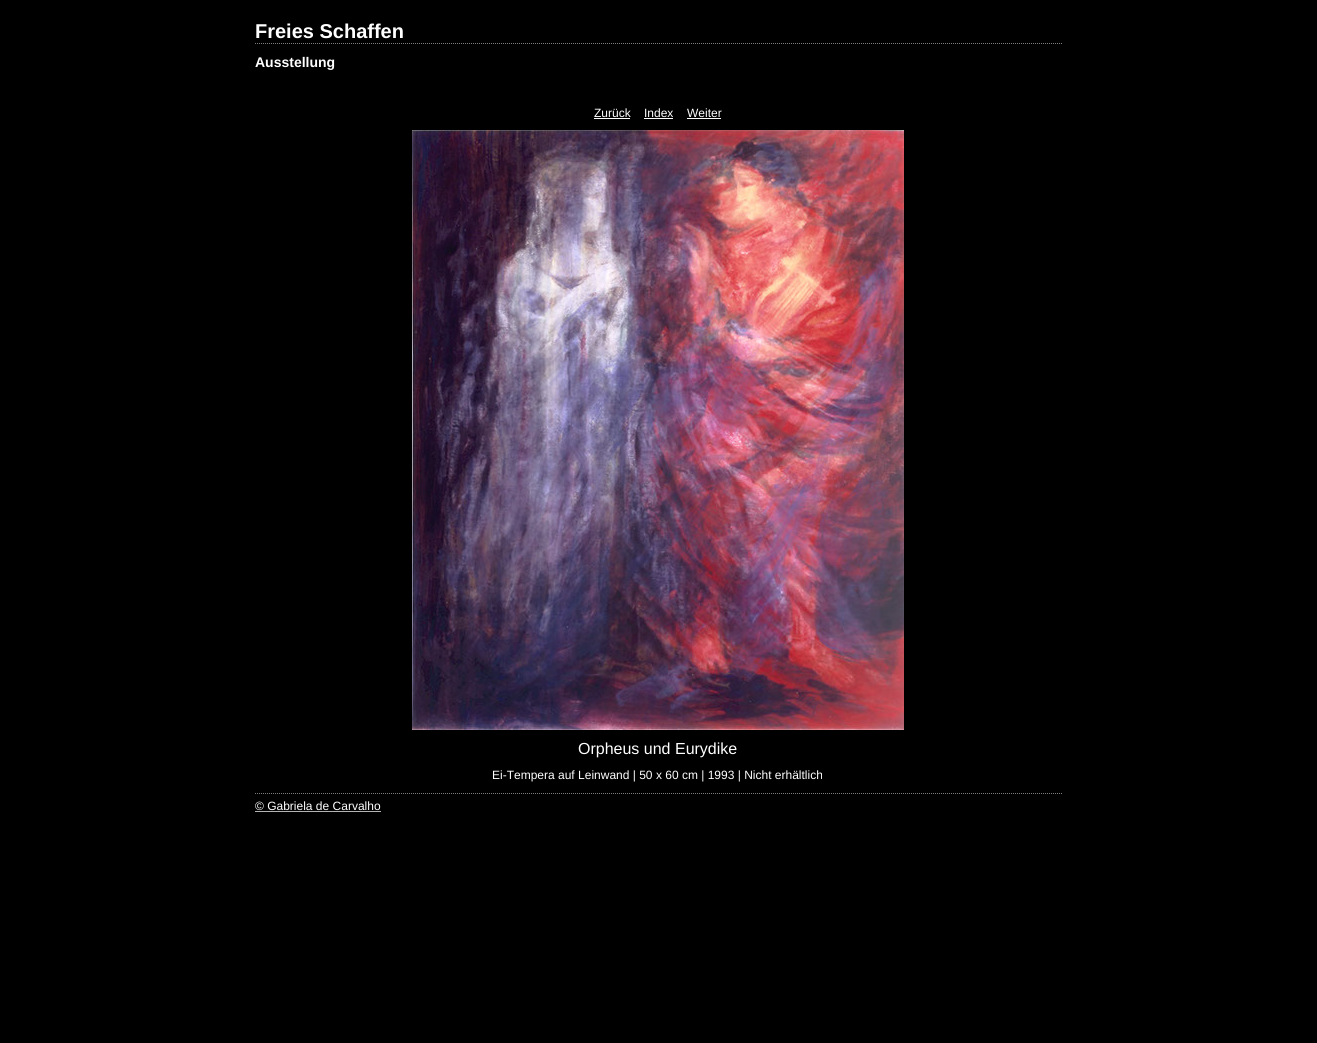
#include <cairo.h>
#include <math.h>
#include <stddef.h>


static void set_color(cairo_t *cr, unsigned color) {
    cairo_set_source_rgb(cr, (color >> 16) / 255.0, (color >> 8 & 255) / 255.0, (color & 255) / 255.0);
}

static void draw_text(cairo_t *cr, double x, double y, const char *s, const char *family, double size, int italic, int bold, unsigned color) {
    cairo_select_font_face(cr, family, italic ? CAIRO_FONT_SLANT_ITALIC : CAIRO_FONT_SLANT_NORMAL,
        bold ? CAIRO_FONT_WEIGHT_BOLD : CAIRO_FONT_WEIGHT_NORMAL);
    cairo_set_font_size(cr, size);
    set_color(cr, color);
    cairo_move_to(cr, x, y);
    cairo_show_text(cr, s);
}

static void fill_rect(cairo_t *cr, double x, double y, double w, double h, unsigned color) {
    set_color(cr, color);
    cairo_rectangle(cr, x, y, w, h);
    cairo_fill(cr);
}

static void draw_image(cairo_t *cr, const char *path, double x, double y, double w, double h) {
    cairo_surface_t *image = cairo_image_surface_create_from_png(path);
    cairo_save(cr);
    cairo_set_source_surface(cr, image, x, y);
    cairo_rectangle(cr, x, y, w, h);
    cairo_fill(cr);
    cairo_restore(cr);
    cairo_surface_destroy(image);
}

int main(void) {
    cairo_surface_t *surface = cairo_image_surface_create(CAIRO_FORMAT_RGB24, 1317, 1043);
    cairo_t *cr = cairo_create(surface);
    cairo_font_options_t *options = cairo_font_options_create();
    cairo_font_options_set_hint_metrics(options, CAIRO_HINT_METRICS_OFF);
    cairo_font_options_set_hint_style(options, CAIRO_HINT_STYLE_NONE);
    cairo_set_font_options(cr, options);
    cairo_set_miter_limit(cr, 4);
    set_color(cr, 0x000000);
    cairo_paint(cr);
    cairo_new_path(cr);
    cairo_move_to(cr, 255, 43.5);
    cairo_line_to(cr, 1062, 43.5);
    set_color(cr, 0x7F7F7F);
    cairo_set_line_width(cr, 1);
    cairo_set_dash(cr, (double[]){1, 1}, 2, 0);
    cairo_stroke(cr);
    draw_text(cr, 255, 38, "Freies Schaffen", "Liberation Sans", 20, 0, 1, 0xFFFFFF);
    draw_text(cr, 255, 67, "Ausstellung", "Liberation Sans", 14, 0, 1, 0xFFFFFF);
    draw_text(cr, 594, 117, "Zurück", "Liberation Sans", 12, 0, 0, 0xFFFFFF);
    fill_rect(cr, 594, 118, 36, 1, 0xFFFFFF);
    draw_text(cr, 644, 117, "Index", "Liberation Sans", 12, 0, 0, 0xFFFFFF);
    fill_rect(cr, 644, 118, 29, 1, 0xFFFFFF);
    draw_text(cr, 687, 117, "Weiter", "Liberation Sans", 12, 0, 0, 0xFFFFFF);
    fill_rect(cr, 687, 118, 34, 1, 0xFFFFFF);
    draw_image(cr, "assets/img1.png", 412, 130, 492, 600);
    draw_text(cr, 578, 754, "Orpheus und Eurydike", "Liberation Sans", 16, 0, 0, 0xFFFFFF);
    draw_text(cr, 492, 779, "Ei-Tempera auf Leinwand | 50 x 60 cm | 1993 | Nicht erhältlich", "Liberation Sans", 12, 0, 0, 0xFFFFFF);
    cairo_new_path(cr);
    cairo_move_to(cr, 255, 793.5);
    cairo_line_to(cr, 1062, 793.5);
    set_color(cr, 0x7F7F7F);
    cairo_stroke(cr);
    draw_text(cr, 255, 810, "© Gabriela de Carvalho", "Liberation Sans", 12, 0, 0, 0xFFFFFF);
    fill_rect(cr, 255, 811, 126, 1, 0xB3B3B3);
    cairo_surface_write_to_png(surface, "output.png");
    cairo_font_options_destroy(options);
    cairo_destroy(cr);
    cairo_surface_destroy(surface);
    return 0;
}
